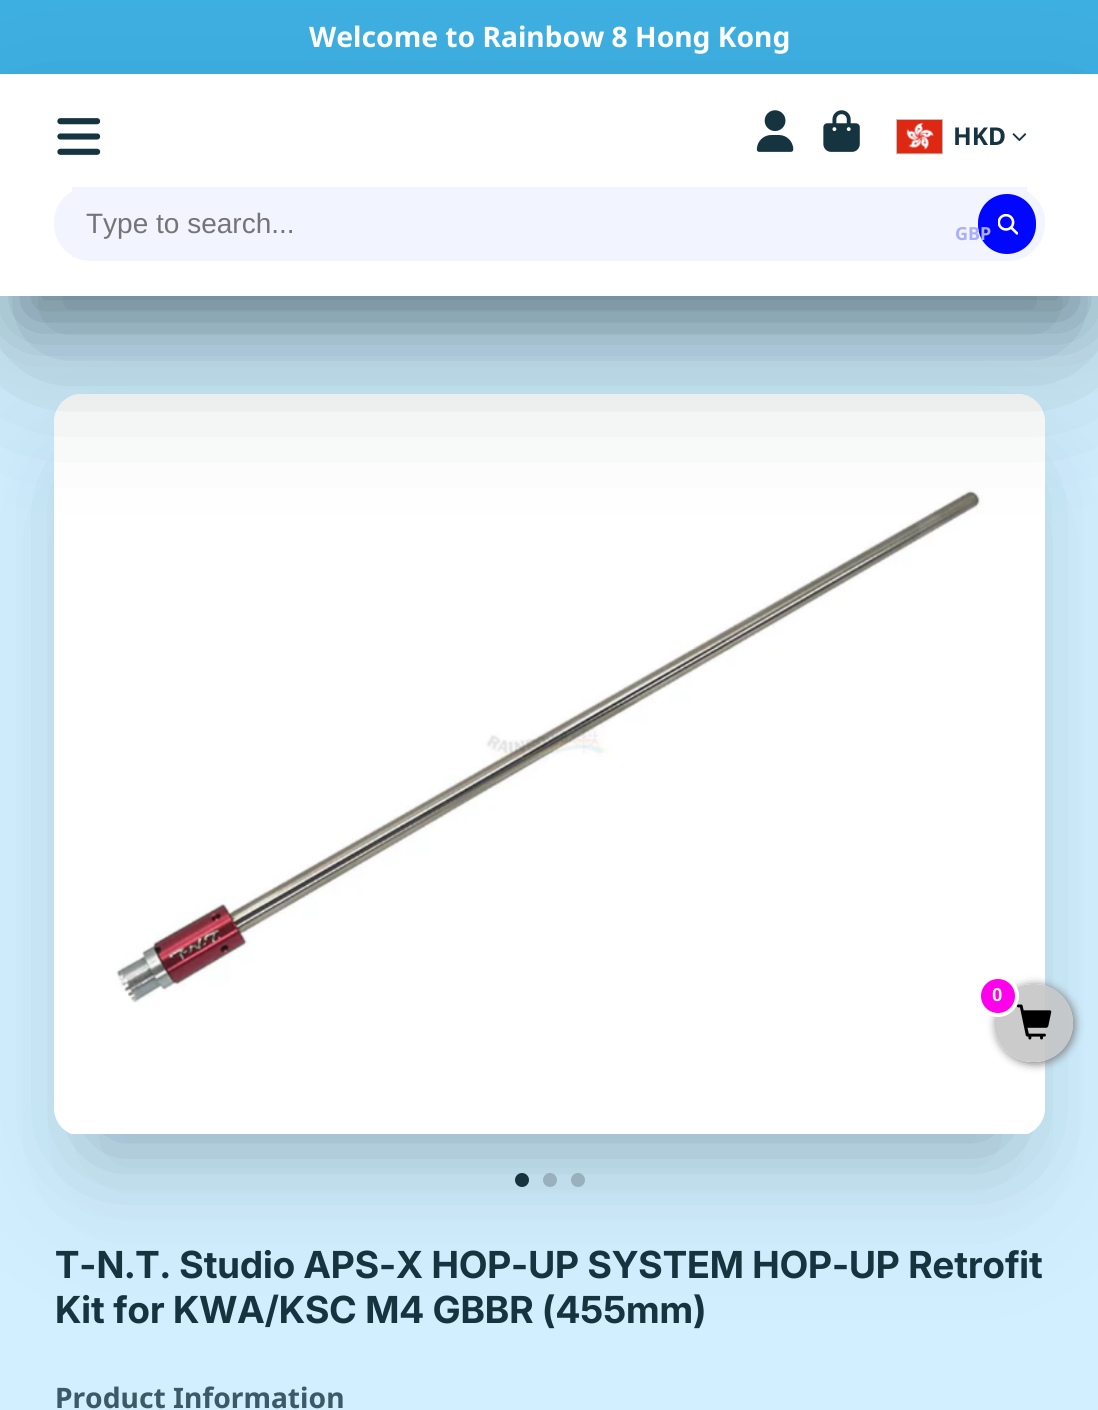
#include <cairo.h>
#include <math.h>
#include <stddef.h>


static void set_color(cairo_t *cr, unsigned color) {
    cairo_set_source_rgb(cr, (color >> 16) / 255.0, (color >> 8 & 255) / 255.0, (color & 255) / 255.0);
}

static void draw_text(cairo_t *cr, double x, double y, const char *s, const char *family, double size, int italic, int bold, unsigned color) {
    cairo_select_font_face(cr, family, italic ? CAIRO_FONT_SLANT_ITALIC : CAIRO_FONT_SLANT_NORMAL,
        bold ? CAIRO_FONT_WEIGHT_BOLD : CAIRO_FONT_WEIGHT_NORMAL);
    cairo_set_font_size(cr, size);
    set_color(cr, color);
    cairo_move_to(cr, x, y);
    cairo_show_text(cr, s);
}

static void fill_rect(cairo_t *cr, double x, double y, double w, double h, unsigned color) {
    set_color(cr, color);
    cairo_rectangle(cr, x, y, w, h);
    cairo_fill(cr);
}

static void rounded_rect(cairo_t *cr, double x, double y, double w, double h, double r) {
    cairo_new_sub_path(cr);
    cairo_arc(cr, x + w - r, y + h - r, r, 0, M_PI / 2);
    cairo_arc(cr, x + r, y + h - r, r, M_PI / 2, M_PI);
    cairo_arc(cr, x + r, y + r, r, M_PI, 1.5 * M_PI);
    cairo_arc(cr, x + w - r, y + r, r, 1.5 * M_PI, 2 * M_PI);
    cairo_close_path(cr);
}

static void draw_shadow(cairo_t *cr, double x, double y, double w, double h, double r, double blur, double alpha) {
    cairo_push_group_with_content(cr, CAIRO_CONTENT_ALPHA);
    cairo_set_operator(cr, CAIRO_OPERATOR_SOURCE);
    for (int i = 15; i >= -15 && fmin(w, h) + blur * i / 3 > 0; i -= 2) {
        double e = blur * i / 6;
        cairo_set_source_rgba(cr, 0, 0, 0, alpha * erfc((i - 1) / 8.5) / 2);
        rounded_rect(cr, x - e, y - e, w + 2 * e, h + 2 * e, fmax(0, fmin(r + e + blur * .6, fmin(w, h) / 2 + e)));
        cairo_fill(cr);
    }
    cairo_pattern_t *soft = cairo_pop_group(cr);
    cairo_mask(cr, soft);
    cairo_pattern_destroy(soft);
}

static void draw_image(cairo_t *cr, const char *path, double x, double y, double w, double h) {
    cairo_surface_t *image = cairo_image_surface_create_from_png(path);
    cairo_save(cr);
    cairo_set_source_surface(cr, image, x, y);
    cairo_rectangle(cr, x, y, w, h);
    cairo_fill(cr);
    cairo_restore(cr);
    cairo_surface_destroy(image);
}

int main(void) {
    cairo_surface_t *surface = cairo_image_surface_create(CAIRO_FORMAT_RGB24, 1098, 1410);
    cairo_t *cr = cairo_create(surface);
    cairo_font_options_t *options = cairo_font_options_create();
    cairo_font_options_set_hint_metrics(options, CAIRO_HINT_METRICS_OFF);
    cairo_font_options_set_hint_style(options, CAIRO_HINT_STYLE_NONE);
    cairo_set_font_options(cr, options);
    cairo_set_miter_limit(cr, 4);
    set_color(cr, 0xD1EFFF);
    cairo_paint(cr);
    fill_rect(cr, 0, 0, 1098, 74, 0x3EAFE1);
    draw_text(cr, 309, 47, "Welcome to Rainbow 8 Hong Kong", "Noto Sans", 28.2, 0, 1, 0xFFFFFF);
    set_color(cr, 0x163340);
    cairo_new_path(cr);
    cairo_arc(cr, 522, 1180, 7, 0, 2 * M_PI);
    cairo_fill(cr);
    set_color(cr, 0xA7BFCC);
    cairo_arc(cr, 550, 1180, 7, 0, 2 * M_PI);
    cairo_fill(cr);
    cairo_arc(cr, 578, 1180, 7, 0, 2 * M_PI);
    cairo_fill(cr);
    set_color(cr, 0x0F242D);
    draw_shadow(cr, 100, 487, 899, 649, 0, 46, 0.3);
    draw_shadow(cr, 86, 501, 929, 680, 0, 76.5, 0.1);
    cairo_save(cr);
    rounded_rect(cr, 54, 394, 991, 742, 28);
    cairo_clip(cr);
    set_color(cr, 0xFFFFFF);
    cairo_new_path(cr);
    cairo_move_to(cr, 82, 394);
    cairo_line_to(cr, 1043, 394);
    cairo_line_to(cr, 1043, 1134);
    cairo_line_to(cr, 54, 1134);
    cairo_line_to(cr, 54, 422);
    cairo_curve_to(cr, 54, 406.5, 66.5, 394, 82, 394);
    cairo_close_path(cr);
    cairo_fill(cr);
    cairo_restore(cr);
    draw_image(cr, "assets/img7.png", 54, 394, 989, 740);
    cairo_save(cr);
    rounded_rect(cr, 54, 394, 991, 742, 28);
    cairo_clip(cr);
    fill_rect(cr, 1043, 411, 2, 707, 0xFFFFFF);
    cairo_restore(cr);
    draw_image(cr, "assets/img8.png", 1043, 412, 2, 705);
    draw_shadow(cr, 25, 144, 1050, 173, 0, 33.5, 0.4);
    draw_shadow(cr, 25, 175, 1050, 173, 0, 76.5, 0.3);
    fill_rect(cr, 0, 74, 1098, 222, 0xFFFFFF);
    draw_image(cr, "assets/img1.png", 57, 118, 44, 37);
    set_color(cr, 0xF2F5FF);
    rounded_rect(cr, 54, 187, 991, 70, 35);
    cairo_fill(cr);
    fill_rect(cr, 72, 187, 955, 70, 0xF2F5FF);
    rounded_rect(cr, 54, 187, 991, 74, 37);
    cairo_fill(cr);
    draw_text(cr, 86, 233, "Type to search...", "Liberation Sans", 28, 0, 0, 0x757575);
    set_color(cr, 0x0006FF);
    rounded_rect(cr, 978, 194, 58, 60, 29);
    cairo_fill(cr);
    draw_image(cr, "assets/img2.png", 998, 214, 20, 21);
    draw_image(cr, "assets/img3.png", 756, 110, 38, 42);
    draw_image(cr, "assets/img4.png", 823, 110, 37, 42);
    draw_image(cr, "assets/img5.png", 896, 119, 47, 36);
    draw_text(cr, 953, 145, "HKD", "Noto Sans", 24.5, 0, 1, 0x163340);
    draw_text(cr, 955, 240, "GBP", "Noto Sans", 18, 0, 1, 0xAAAEFF);
    draw_image(cr, "assets/img6.png", 1012, 133, 15, 9);
    draw_text(cr, 55, 1278, "T-N.T. Studio APS-X HOP-UP SYSTEM HOP-UP Retrofit", "Inter", 37.25, 0, 1, 0x163340);
    draw_text(cr, 55, 1323, "Kit for KWA/KSC M4 GBBR (455mm)", "Inter", 37.25, 0, 1, 0x163340);
    draw_text(cr, 55, 1408, "Product Information", "Noto Sans", 28.2, 0, 1, 0x3B5966);
    cairo_save(cr);
    cairo_set_fill_rule(cr, CAIRO_FILL_RULE_EVEN_ODD);
    cairo_new_path(cr);
    cairo_move_to(cr, 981, 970);
    cairo_line_to(cr, 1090, 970);
    cairo_line_to(cr, 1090, 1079);
    cairo_line_to(cr, 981, 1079);
    cairo_close_path(cr);
    cairo_move_to(cr, 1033, 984);
    cairo_line_to(cr, 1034, 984);
    cairo_curve_to(cr, 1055.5, 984, 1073, 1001.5, 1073, 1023);
    cairo_curve_to(cr, 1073, 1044.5, 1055.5, 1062, 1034, 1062);
    cairo_line_to(cr, 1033, 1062);
    cairo_curve_to(cr, 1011.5, 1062, 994, 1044.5, 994, 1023);
    cairo_curve_to(cr, 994, 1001.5, 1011.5, 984, 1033, 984);
    cairo_close_path(cr);
    cairo_clip(cr);
    set_color(cr, 0x808080);
    draw_shadow(cr, 996, 985, 79, 79, 39.5, 4.5, 1);
    cairo_restore(cr);
    cairo_set_source_rgba(cr, 0.776, 0.776, 0.776, 0.9);
    rounded_rect(cr, 994, 984, 79, 78, 39);
    cairo_fill(cr);
    draw_image(cr, "assets/img9.png", 1017, 1004, 35, 36);
    set_color(cr, 0xFF00EC);
    cairo_arc(cr, 998, 996, 19, 0, 2 * M_PI);
    cairo_fill_preserve(cr);
    set_color(cr, 0xFFFFFF);
    cairo_set_line_width(cr, 4);
    cairo_stroke(cr);
    draw_text(cr, 992, 1001, "0", "Roboto", 18, 0, 1, 0xFFFFFF);
    cairo_surface_write_to_png(surface, "output.png");
    cairo_font_options_destroy(options);
    cairo_destroy(cr);
    cairo_surface_destroy(surface);
    return 0;
}
